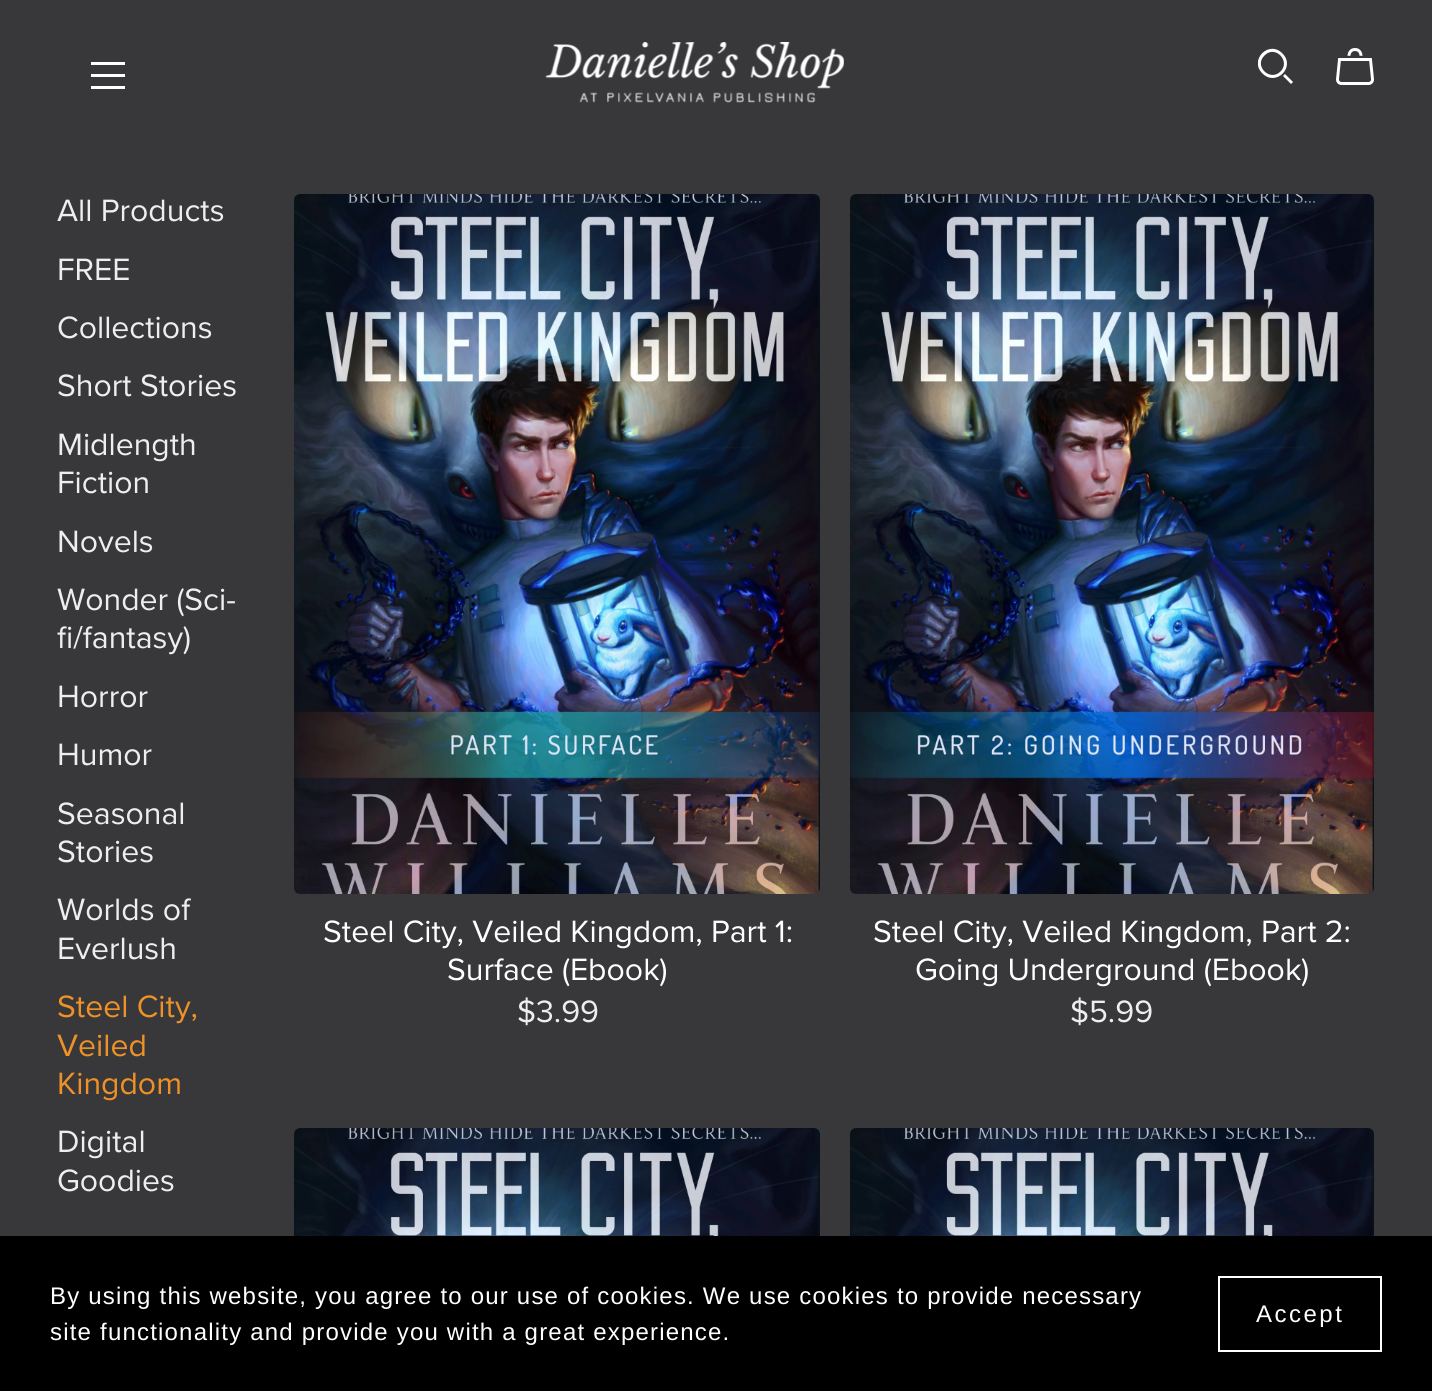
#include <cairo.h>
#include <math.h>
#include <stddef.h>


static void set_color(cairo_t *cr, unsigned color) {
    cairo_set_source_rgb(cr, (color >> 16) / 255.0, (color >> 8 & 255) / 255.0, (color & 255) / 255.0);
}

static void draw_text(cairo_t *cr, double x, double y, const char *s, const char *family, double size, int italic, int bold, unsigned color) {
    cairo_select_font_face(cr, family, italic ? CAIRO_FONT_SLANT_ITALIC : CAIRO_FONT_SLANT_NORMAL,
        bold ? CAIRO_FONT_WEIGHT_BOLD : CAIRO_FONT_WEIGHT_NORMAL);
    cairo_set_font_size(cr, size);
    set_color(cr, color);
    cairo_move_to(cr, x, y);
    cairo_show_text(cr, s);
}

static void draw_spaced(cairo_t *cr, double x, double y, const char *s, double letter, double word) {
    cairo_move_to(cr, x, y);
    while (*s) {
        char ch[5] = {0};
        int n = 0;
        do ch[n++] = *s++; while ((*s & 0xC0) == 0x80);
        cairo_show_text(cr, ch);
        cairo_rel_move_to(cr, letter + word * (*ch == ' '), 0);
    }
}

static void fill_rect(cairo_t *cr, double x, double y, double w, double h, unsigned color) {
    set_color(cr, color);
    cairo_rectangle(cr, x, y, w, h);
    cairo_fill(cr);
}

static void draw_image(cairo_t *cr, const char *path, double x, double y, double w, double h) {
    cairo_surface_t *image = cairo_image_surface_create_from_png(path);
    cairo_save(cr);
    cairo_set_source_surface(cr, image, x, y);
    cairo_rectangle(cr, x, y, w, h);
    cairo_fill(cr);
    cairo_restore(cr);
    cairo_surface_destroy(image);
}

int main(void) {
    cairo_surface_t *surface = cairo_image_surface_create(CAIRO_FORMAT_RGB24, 1432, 1391);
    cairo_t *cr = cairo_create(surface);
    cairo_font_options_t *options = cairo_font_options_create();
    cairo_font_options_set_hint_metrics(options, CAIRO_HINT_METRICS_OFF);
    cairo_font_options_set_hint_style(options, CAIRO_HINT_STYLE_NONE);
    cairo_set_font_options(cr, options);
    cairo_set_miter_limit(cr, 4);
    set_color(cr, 0x38383B);
    cairo_paint(cr);
    set_color(cr, 0xFFFFFF);
    cairo_set_fill_rule(cr, CAIRO_FILL_RULE_EVEN_ODD);
    cairo_new_path(cr);
    cairo_move_to(cr, 125, 65);
    cairo_line_to(cr, 91, 65);
    cairo_line_to(cr, 91, 62);
    cairo_line_to(cr, 125, 62);
    cairo_close_path(cr);
    cairo_move_to(cr, 125, 77);
    cairo_line_to(cr, 91, 77);
    cairo_line_to(cr, 91, 74);
    cairo_line_to(cr, 125, 74);
    cairo_close_path(cr);
    cairo_move_to(cr, 91, 89);
    cairo_line_to(cr, 125, 89);
    cairo_line_to(cr, 125, 86);
    cairo_line_to(cr, 91, 86);
    cairo_close_path(cr);
    cairo_fill(cr);
    draw_image(cr, "assets/img1.png", 545, 42, 299, 61);
    cairo_save(cr);
    cairo_set_fill_rule(cr, CAIRO_FILL_RULE_WINDING);
    cairo_rectangle(cr, 1258, 48, 36, 38);
    cairo_clip(cr);
    cairo_set_fill_rule(cr, CAIRO_FILL_RULE_EVEN_ODD);
    cairo_new_path(cr);
    cairo_move_to(cr, 1264.5, 55.5);
    cairo_curve_to(cr, 1253.5, 66, 1270, 82, 1280.5, 71.5);
    cairo_curve_to(cr, 1291, 61, 1275, 44.5, 1264.5, 55.5);
    cairo_close_path(cr);
    cairo_move_to(cr, 1262.5, 73.5);
    cairo_curve_to(cr, 1248.5, 60, 1269, 39.5, 1282.5, 53.5);
    cairo_curve_to(cr, 1296, 67, 1276, 87, 1262.5, 73.5);
    cairo_close_path(cr);
    cairo_move_to(cr, 1291, 84);
    cairo_line_to(cr, 1283, 76);
    cairo_line_to(cr, 1285, 74);
    cairo_line_to(cr, 1293, 82);
    cairo_close_path(cr);
    cairo_fill(cr);
    cairo_restore(cr);
    draw_image(cr, "assets/img2.png", 1336, 48, 38, 37);
    draw_text(cr, 57, 221, "All Products", "Proxima Nova", 32, 0, 0, 0xEEEEEE);
    draw_text(cr, 57, 280, "FREE", "Proxima Nova", 32, 0, 0, 0xEEEEEE);
    draw_text(cr, 57, 338, "Collections", "Proxima Nova", 32, 0, 0, 0xEEEEEE);
    draw_text(cr, 57, 396, "Short Stories", "Proxima Nova", 32, 0, 0, 0xEEEEEE);
    draw_text(cr, 57, 455, "Midlength", "Proxima Nova", 32, 0, 0, 0xEEEEEE);
    draw_text(cr, 57, 493, "Fiction", "Proxima Nova", 32, 0, 0, 0xEEEEEE);
    draw_text(cr, 57, 552, "Novels", "Proxima Nova", 32, 0, 0, 0xEEEEEE);
    draw_text(cr, 57, 610, "Wonder (Sci-", "Proxima Nova", 32, 0, 0, 0xEEEEEE);
    draw_text(cr, 57, 648, "fi/fantasy)", "Proxima Nova", 32, 0, 0, 0xEEEEEE);
    draw_text(cr, 57, 707, "Horror", "Proxima Nova", 32, 0, 0, 0xEEEEEE);
    draw_text(cr, 57, 765, "Humor", "Proxima Nova", 32, 0, 0, 0xEEEEEE);
    draw_text(cr, 57, 824, "Seasonal", "Proxima Nova", 32, 0, 0, 0xEEEEEE);
    draw_text(cr, 57, 862, "Stories", "Proxima Nova", 32, 0, 0, 0xEEEEEE);
    draw_text(cr, 57, 920, "Worlds of", "Proxima Nova", 32, 0, 0, 0xEEEEEE);
    draw_text(cr, 57, 959, "Everlush", "Proxima Nova", 32, 0, 0, 0xEEEEEE);
    draw_text(cr, 57, 1017, "Steel City,", "Proxima Nova", 32, 0, 0, 0xEE9126);
    draw_text(cr, 57, 1056, "Veiled", "Proxima Nova", 32, 0, 0, 0xEE9126);
    draw_text(cr, 57, 1094, "Kingdom", "Proxima Nova", 32, 0, 0, 0xEE9126);
    draw_text(cr, 57, 1152, "Digital", "Proxima Nova", 32, 0, 0, 0xEEEEEE);
    draw_text(cr, 57, 1191, "Goodies", "Proxima Nova", 32, 0, 0, 0xEEEEEE);
    draw_image(cr, "assets/img3.png", 294, 194, 526, 700);
    draw_text(cr, 323, 942, "Steel City, Veiled Kingdom, Part 1:", "Proxima Nova", 32, 0, 0, 0xFFFFFF);
    draw_text(cr, 447, 980, "Surface (Ebook)", "Proxima Nova", 32, 0, 0, 0xFFFFFF);
    draw_text(cr, 517, 1022, "$3.99", "Proxima Nova", 32, 0, 0, 0xEEEEEE);
    draw_image(cr, "assets/img4.png", 850, 194, 524, 700);
    draw_text(cr, 873, 942, "Steel City, Veiled Kingdom, Part 2:", "Proxima Nova", 32, 0, 0, 0xFFFFFF);
    draw_text(cr, 915, 980, "Going Underground (Ebook)", "Proxima Nova", 32, 0, 0, 0xFFFFFF);
    draw_text(cr, 1070, 1022, "$5.99", "Proxima Nova", 32, 0, 0, 0xEEEEEE);
    draw_image(cr, "assets/img5.png", 294, 1128, 526, 108);
    draw_image(cr, "assets/img6.png", 850, 1128, 524, 108);
    fill_rect(cr, 0, 1236, 1432, 155, 0x000000);
    cairo_select_font_face(cr, "Liberation Sans", CAIRO_FONT_SLANT_NORMAL, CAIRO_FONT_WEIGHT_NORMAL);
    cairo_set_font_size(cr, 24);
    set_color(cr, 0xFFFFFF);
    draw_spaced(cr, 50, 1304, "By using this website, you agree to our use of cookies. We use cookies to provide necessary", 1.2, 0);
    draw_spaced(cr, 50, 1340, "site functionality and provide you with a great experience.", 1.2, 0);
    cairo_rectangle(cr, 1219, 1277, 162, 74);
    cairo_stroke(cr);
    draw_spaced(cr, 1256, 1322, "Accept", 2.5, 0);
    cairo_surface_write_to_png(surface, "output.png");
    cairo_font_options_destroy(options);
    cairo_destroy(cr);
    cairo_surface_destroy(surface);
    return 0;
}
